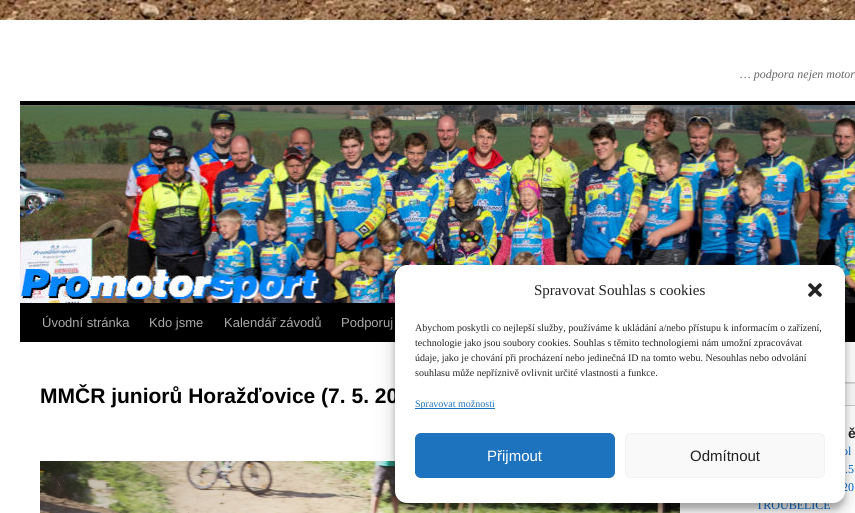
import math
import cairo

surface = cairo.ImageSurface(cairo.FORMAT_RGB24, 855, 513)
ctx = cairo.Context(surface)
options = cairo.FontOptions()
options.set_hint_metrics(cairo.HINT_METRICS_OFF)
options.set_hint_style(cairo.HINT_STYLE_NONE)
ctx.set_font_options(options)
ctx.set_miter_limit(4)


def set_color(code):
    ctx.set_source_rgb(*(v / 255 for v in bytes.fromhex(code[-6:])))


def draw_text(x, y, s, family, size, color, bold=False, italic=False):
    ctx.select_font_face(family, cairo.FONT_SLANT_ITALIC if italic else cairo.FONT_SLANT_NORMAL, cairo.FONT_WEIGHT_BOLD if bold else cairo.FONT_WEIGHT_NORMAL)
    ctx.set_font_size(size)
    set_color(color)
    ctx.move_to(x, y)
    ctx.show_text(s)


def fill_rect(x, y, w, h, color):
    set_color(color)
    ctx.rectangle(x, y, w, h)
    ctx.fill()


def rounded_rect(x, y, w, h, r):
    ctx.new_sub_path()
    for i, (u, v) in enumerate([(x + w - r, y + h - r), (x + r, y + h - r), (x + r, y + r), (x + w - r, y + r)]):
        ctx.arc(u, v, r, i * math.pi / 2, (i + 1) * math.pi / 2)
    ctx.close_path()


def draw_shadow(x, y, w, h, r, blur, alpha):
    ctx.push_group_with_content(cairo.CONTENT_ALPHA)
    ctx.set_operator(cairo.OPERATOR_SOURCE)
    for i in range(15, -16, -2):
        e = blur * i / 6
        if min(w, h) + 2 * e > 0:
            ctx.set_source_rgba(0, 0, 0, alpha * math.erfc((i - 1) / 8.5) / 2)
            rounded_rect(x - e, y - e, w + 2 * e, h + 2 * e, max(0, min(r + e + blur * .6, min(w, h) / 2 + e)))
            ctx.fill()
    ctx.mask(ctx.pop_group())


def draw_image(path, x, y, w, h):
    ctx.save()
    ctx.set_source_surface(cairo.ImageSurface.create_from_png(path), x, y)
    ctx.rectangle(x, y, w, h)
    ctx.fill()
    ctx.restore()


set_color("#ffffff")
ctx.paint()
draw_image("assets/img1.png", 0, 0, 855, 20)
draw_text(740, 78, "… podpora nejen motor", "Liberation Serif", 12, "#666666", italic=True)
fill_rect(20, 101, 835, 4, "#000000")
fill_rect(20, 303, 835, 39, "#000000")
draw_image("assets/img2.png", 20, 105, 835, 198)
draw_text(42, 327, "Úvodní stránka", "Liberation Sans", 13, "#aaaaaa")
draw_text(149, 327, "Kdo jsme", "Liberation Sans", 13, "#aaaaaa")
draw_text(224, 327, "Kalendář závodů", "Liberation Sans", 13, "#aaaaaa")
draw_text(341, 327, "Podporuj", "Liberation Sans", 13, "#aaaaaa")
draw_text(40, 403, "MMČR juniorů Horažďovice (7. 5. 20", "Liberation Sans", 21, "#000000", bold=True)
draw_image("assets/img3.png", 40, 461, 640, 52)
fill_rect(845, 384, 10, 21, "#f9f9f9")
ctx.save()
ctx.rectangle(741, 383, 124, 22)
ctx.clip()
set_color("#e0e0e0")
ctx.set_fill_rule(cairo.FILL_RULE_EVEN_ODD)
ctx.new_path()
ctx.move_to(642, 284)
ctx.line_to(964, 284)
ctx.line_to(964, 504)
ctx.line_to(642, 504)
ctx.close_path()
ctx.move_to(742, 384)
ctx.line_to(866, 384)
ctx.line_to(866, 406)
ctx.line_to(742, 406)
ctx.close_path()
ctx.fill()
ctx.restore()
ctx.rectangle(740.5, 382.5, 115, 23)
set_color("#cccccc")
ctx.set_line_width(1)
ctx.stroke()
draw_text(848, 438, "ě", "Liberation Sans", 14, "#222222", bold=True)
draw_text(842, 455, "ol", "Liberation Serif", 12, "#0066cc")
draw_text(845, 473, ".5", "Liberation Serif", 12, "#0066cc")
draw_text(842, 491, "20", "Liberation Serif", 12, "#0066cc")
draw_text(756, 509, "TROUBELICE", "Liberation Serif", 12, "#0066cc")
set_color("#000000")
draw_shadow(395, 271, 450, 238, 12, 3, 0.23)
draw_shadow(395, 275, 450, 238, 12, 10, 0.19)
set_color("#ffffff")
rounded_rect(395, 265, 450, 238, 12)
ctx.fill()
draw_text(534, 295, "Spravovat Souhlas s cookies", "Liberation Serif", 15, "#222222")
draw_image("assets/img4.png", 808, 283, 14, 14)
draw_text(415, 331, "Abychom poskytli co nejlepší služby, používáme k ukládání a/nebo přístupu k informacím o zařízení,", "Liberation Serif", 10, "#222222")
draw_text(415, 346, "technologie jako jsou soubory cookies. Souhlas s těmito technologiemi nám umožní zpracovávat", "Liberation Serif", 10, "#222222")
draw_text(415, 361, "údaje, jako je chování při procházení nebo jedinečná ID na tomto webu. Nesouhlas nebo odvolání", "Liberation Serif", 10, "#222222")
draw_text(415, 376, "souhlasu může nepříznivě ovlivnit určité vlastnosti a funkce.", "Liberation Serif", 10, "#222222")
fill_rect(415, 408, 80, 1, "#1e73be")
draw_text(415, 407, "Spravovat možnosti", "Liberation Serif", 10, "#1e73be")
rounded_rect(415.5, 433.5, 199, 44, 5.5)
ctx.fill_preserve()
ctx.stroke()
draw_text(487, 461, "Přijmout", "Liberation Sans", 15, "#ffffff")
set_color("#f9f9f9")
rounded_rect(625.5, 433.5, 199, 44, 5.5)
ctx.fill_preserve()
set_color("#f2f2f2")
ctx.stroke()
draw_text(690, 461, "Odmítnout", "Liberation Sans", 15, "#222222")
surface.write_to_png("output.png")
